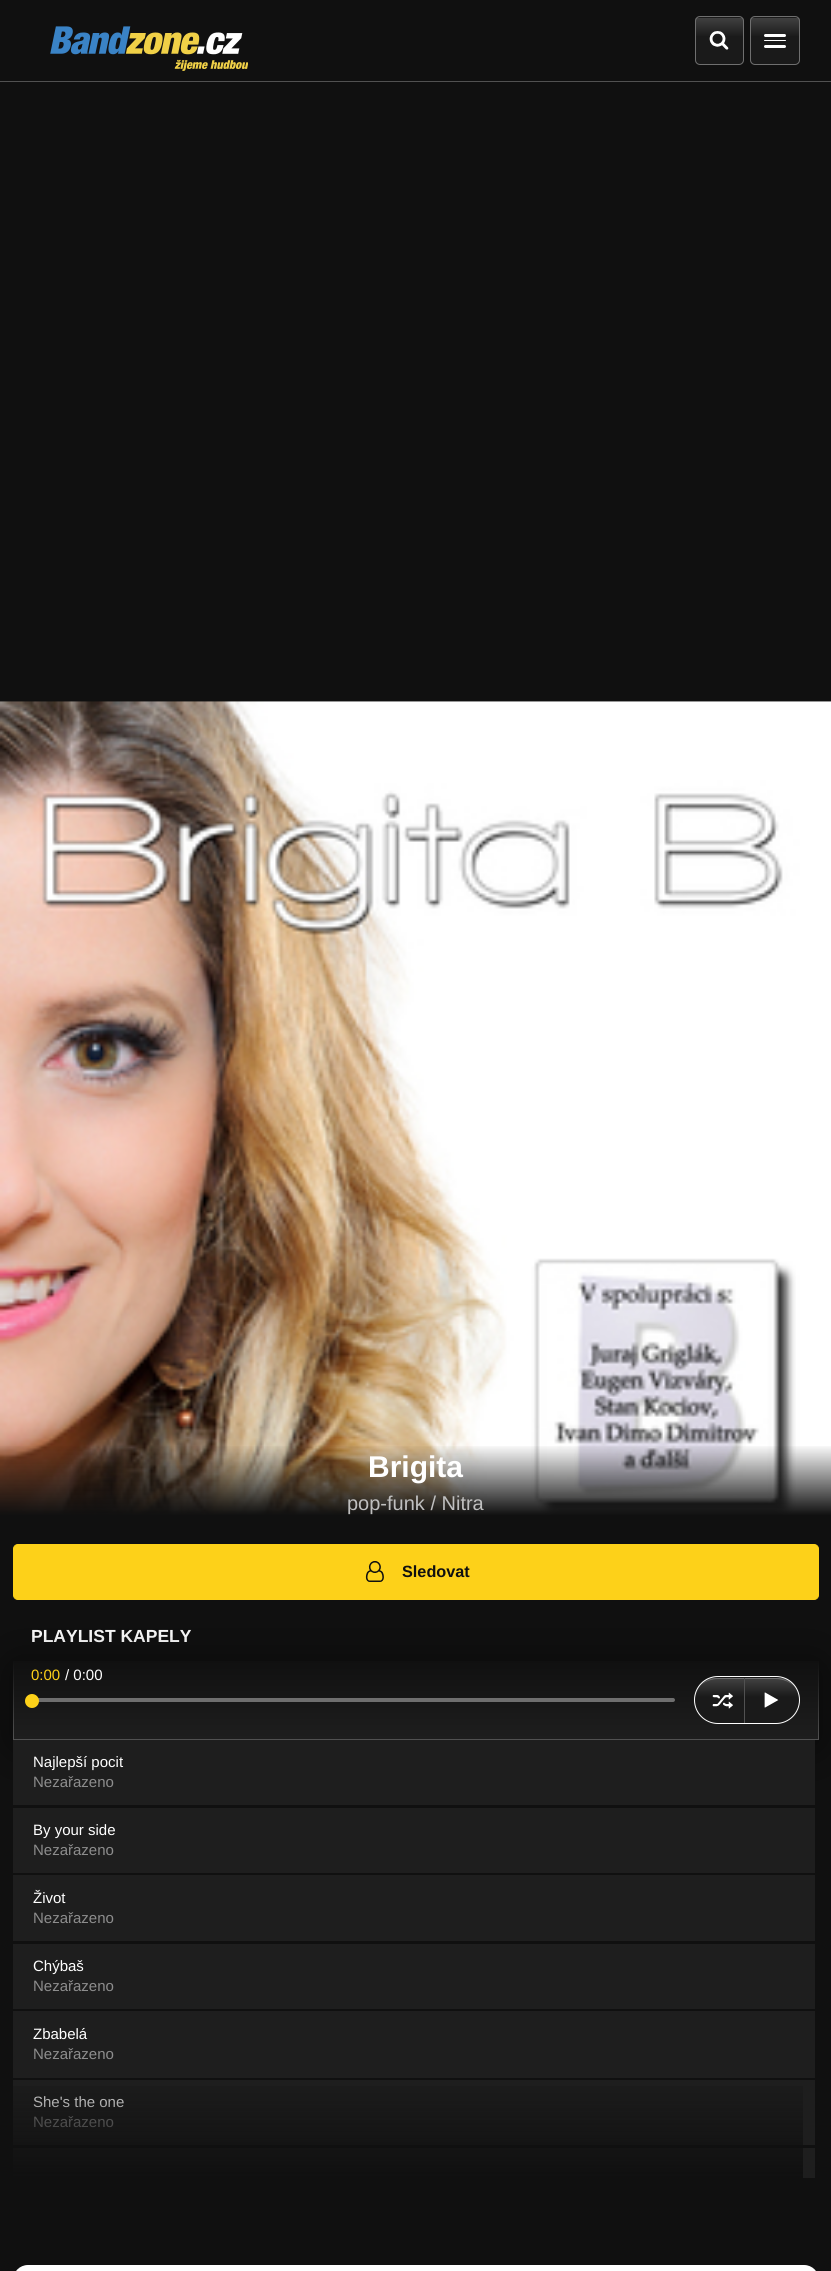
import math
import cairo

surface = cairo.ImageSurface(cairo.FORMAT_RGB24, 831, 2271)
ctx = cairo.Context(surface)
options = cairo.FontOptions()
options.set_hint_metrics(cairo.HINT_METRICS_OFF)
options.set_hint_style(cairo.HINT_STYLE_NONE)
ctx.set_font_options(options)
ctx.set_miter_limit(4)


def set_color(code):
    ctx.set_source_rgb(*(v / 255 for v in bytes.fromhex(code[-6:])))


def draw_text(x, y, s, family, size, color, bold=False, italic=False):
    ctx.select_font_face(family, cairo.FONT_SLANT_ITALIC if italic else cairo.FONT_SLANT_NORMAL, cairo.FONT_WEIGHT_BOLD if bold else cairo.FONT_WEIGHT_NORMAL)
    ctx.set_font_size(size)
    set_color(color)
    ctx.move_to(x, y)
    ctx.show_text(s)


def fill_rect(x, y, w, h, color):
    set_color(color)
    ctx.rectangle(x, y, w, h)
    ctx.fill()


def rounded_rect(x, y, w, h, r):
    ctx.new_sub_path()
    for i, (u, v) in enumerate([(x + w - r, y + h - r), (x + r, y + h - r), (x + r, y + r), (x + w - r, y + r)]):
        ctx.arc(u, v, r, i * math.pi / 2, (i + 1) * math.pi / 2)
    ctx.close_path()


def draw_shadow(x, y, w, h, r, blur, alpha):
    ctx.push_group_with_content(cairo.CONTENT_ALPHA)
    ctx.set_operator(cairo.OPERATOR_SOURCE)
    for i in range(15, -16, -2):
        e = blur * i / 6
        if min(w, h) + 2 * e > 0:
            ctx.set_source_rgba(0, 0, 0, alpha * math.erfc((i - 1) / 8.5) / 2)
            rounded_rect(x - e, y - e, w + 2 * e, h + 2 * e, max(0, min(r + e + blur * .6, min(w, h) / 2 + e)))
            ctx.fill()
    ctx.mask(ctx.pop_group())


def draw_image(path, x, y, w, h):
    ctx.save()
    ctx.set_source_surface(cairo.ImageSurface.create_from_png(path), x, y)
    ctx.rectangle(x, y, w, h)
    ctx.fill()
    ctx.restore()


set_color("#101010")
ctx.paint()
fill_rect(0, 81, 831, 1, "#515151")
draw_image("assets/img1.png", 50, 26, 198, 45)
ctx.save()
rounded_rect(695, 16, 49, 49, 5)
ctx.clip()
gradient = cairo.LinearGradient(719, -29, 719, 18)
gradient.add_color_stop_rgba(0, 0.259, 0.259, 0.259, 1)
gradient.add_color_stop_rgba(0.42, 0.102, 0.102, 0.102, 1)
ctx.set_source(gradient)
ctx.rectangle(695, 16, 49, 2)
ctx.fill()
gradient = cairo.LinearGradient(719, 17, 719, 64)
gradient.add_color_stop_rgba(0, 0.259, 0.259, 0.259, 1)
gradient.add_color_stop_rgba(0.42, 0.102, 0.102, 0.102, 1)
ctx.set_source(gradient)
ctx.rectangle(695, 18, 49, 46)
ctx.fill()
ctx.restore()
rounded_rect(695.5, 16.5, 48, 48, 4.5)
set_color("#6f6f6f")
ctx.set_line_width(1)
ctx.stroke()
draw_image("assets/img2.png", 709, 31, 20, 19)
ctx.save()
rounded_rect(750, 16, 50, 49, 5)
ctx.clip()
gradient = cairo.LinearGradient(775, -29, 775, 18)
gradient.add_color_stop_rgba(0, 0.259, 0.259, 0.259, 1)
gradient.add_color_stop_rgba(0.42, 0.102, 0.102, 0.102, 1)
ctx.set_source(gradient)
ctx.rectangle(750, 16, 50, 2)
ctx.fill()
gradient = cairo.LinearGradient(775, 17, 775, 64)
gradient.add_color_stop_rgba(0, 0.259, 0.259, 0.259, 1)
gradient.add_color_stop_rgba(0.42, 0.102, 0.102, 0.102, 1)
ctx.set_source(gradient)
ctx.rectangle(750, 18, 50, 46)
ctx.fill()
ctx.restore()
rounded_rect(750.5, 16.5, 49, 48, 4.5)
ctx.stroke()
set_color("#ffffff")
rounded_rect(764, 34, 22, 3, 1.5)
ctx.fill()
rounded_rect(764, 40, 22, 1, 0.5)
ctx.fill()
rounded_rect(764, 45, 22, 3, 1.5)
ctx.fill()
draw_image("assets/img3.png", 0, 701, 831, 814)
gradient = cairo.LinearGradient(416, 1444, 416, 1519)
gradient.add_color_stop_rgba(0, 0.063, 0.063, 0.063, 0)
gradient.add_color_stop_rgba(0.95, 0.063, 0.063, 0.063, 1)
ctx.set_source(gradient)
ctx.rectangle(0, 1446, 831, 69)
ctx.fill()
draw_text(368, 1477, "Brigita", "Liberation Sans", 30, "#ffffff", bold=True)
draw_text(347, 1510, "pop-funk / Nitra", "Liberation Sans", 20, "#bfbfbf")
set_color("#fdd119")
rounded_rect(13.5, 1544.5, 805, 55, 4.5)
ctx.fill_preserve()
ctx.stroke()
draw_image("assets/img4.png", 365, 1561, 19, 21)
draw_text(402, 1577, "Sledovat", "Liberation Sans", 16.25, "#101010", bold=True)
draw_text(31, 1642, "PLAYLIST KAPELY", "Liberation Sans", 17.5, "#ffffff", bold=True)
set_color("#000000")
draw_shadow(13, 1666, 806, 79, 0, 25, 0.5)
gradient = cairo.LinearGradient(416, 1661, 416, 1739)
gradient.add_color_stop_rgba(0, 0.063, 0.063, 0.063, 1)
gradient.add_color_stop_rgba(1, 0.118, 0.118, 0.118, 1)
ctx.set_source(gradient)
ctx.rectangle(14, 1661, 804, 78)
ctx.fill()
fill_rect(13, 1739, 806, 1, "#515151")
gradient = cairo.LinearGradient(13, 1661, 13, 1739)
gradient.add_color_stop_rgba(0, 0.063, 0.063, 0.063, 1)
gradient.add_color_stop_rgba(1, 0.318, 0.318, 0.318, 1)
ctx.set_source(gradient)
ctx.rectangle(13, 1661, 1, 78)
ctx.fill()
set_color("#6f6f6f")
rounded_rect(31, 1698, 644, 4, 2)
ctx.fill()
draw_text(31, 1680, "0:00", "Liberation Sans", 15, "#fdd119")
draw_text(65, 1680, "/ 0:00", "Liberation Sans", 15, "#ffffff")
set_color("#fdd119")
ctx.new_path()
ctx.arc(32, 1701, 7, 0, 2 * math.pi)
ctx.fill()
ctx.save()
rounded_rect(694, 1676, 106, 48, 24)
ctx.clip()
gradient = cairo.LinearGradient(747, 1633, 747, 1678)
gradient.add_color_stop_rgba(0, 0.259, 0.259, 0.259, 1)
gradient.add_color_stop_rgba(0.42, 0.102, 0.102, 0.102, 1)
ctx.set_source(gradient)
ctx.rectangle(708, 1676, 78, 2)
ctx.fill()
gradient = cairo.LinearGradient(747, 1678, 747, 1723)
gradient.add_color_stop_rgba(0, 0.259, 0.259, 0.259, 1)
gradient.add_color_stop_rgba(0.42, 0.102, 0.102, 0.102, 1)
ctx.set_source(gradient)
ctx.rectangle(694, 1678, 106, 45)
ctx.fill()
ctx.restore()
ctx.set_source_rgba(1, 1, 1, 0.25)
ctx.new_path()
ctx.move_to(718, 1679)
ctx.line_to(776, 1679)
ctx.curve_to(783, 1679, 790, 1682, 795, 1687)
ctx.curve_to(791, 1682, 784, 1678, 776, 1678)
ctx.line_to(718, 1678)
ctx.curve_to(711, 1678, 705, 1681, 701, 1685)
ctx.curve_to(706, 1681, 712, 1679, 718, 1679)
ctx.close_path()
ctx.fill()
rounded_rect(694.5, 1676.5, 105, 47, 23.5)
set_color("#ffffff")
ctx.stroke()
fill_rect(744, 1678, 1, 45, "#515151")
draw_image("assets/img5.png", 712, 1692, 21, 17)
draw_image("assets/img6.png", 764, 1692, 15, 16)
gradient = cairo.LinearGradient(818, 1661, 818, 1739)
gradient.add_color_stop_rgba(0, 0.063, 0.063, 0.063, 1)
gradient.add_color_stop_rgba(1, 0.318, 0.318, 0.318, 1)
ctx.set_source(gradient)
ctx.rectangle(818, 1661, 1, 78)
ctx.fill()
fill_rect(13, 1740, 802, 65, "#1e1e1e")
draw_text(33, 1767, "Najlepší pocit", "Liberation Sans", 15, "#ffffff")
draw_text(33, 1787, "Nezařazeno", "Liberation Sans", 15, "#8d8d8d")
fill_rect(13, 1808, 802, 65, "#1e1e1e")
draw_text(33, 1835, "By your side", "Liberation Sans", 15, "#ffffff")
draw_text(33, 1855, "Nezařazeno", "Liberation Sans", 15, "#8d8d8d")
fill_rect(13, 1875, 802, 66, "#1e1e1e")
draw_text(33, 1903, "Život", "Liberation Sans", 15, "#ffffff")
draw_text(33, 1923, "Nezařazeno", "Liberation Sans", 15, "#8d8d8d")
fill_rect(13, 1944, 802, 65, "#1e1e1e")
draw_text(33, 1971, "Chýbaš", "Liberation Sans", 15, "#ffffff")
draw_text(33, 1991, "Nezařazeno", "Liberation Sans", 15, "#8d8d8d")
fill_rect(13, 2011, 802, 67, "#1e1e1e")
draw_text(33, 2039, "Zbabelá", "Liberation Sans", 15, "#ffffff")
draw_text(33, 2059, "Nezařazeno", "Liberation Sans", 15, "#8d8d8d")
fill_rect(13, 2080, 802, 65, "#1e1e1e")
draw_text(33, 2107, "She's the one", "Liberation Sans", 15, "#ffffff")
draw_text(33, 2127, "Nezařazeno", "Liberation Sans", 15, "#8d8d8d")
fill_rect(13, 2148, 802, 30, "#1e1e1e")
gradient = cairo.LinearGradient(408, 2065, 408, 2178)
gradient.add_color_stop_rgba(0, 0.063, 0.063, 0.063, 0)
gradient.add_color_stop_rgba(1, 0.063, 0.063, 0.063, 1)
ctx.set_source(gradient)
ctx.rectangle(13, 2086, 790, 92)
ctx.fill()
set_color("#ffffff")
rounded_rect(13, 2265, 806, 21, 15)
ctx.fill()
surface.write_to_png("output.png")
